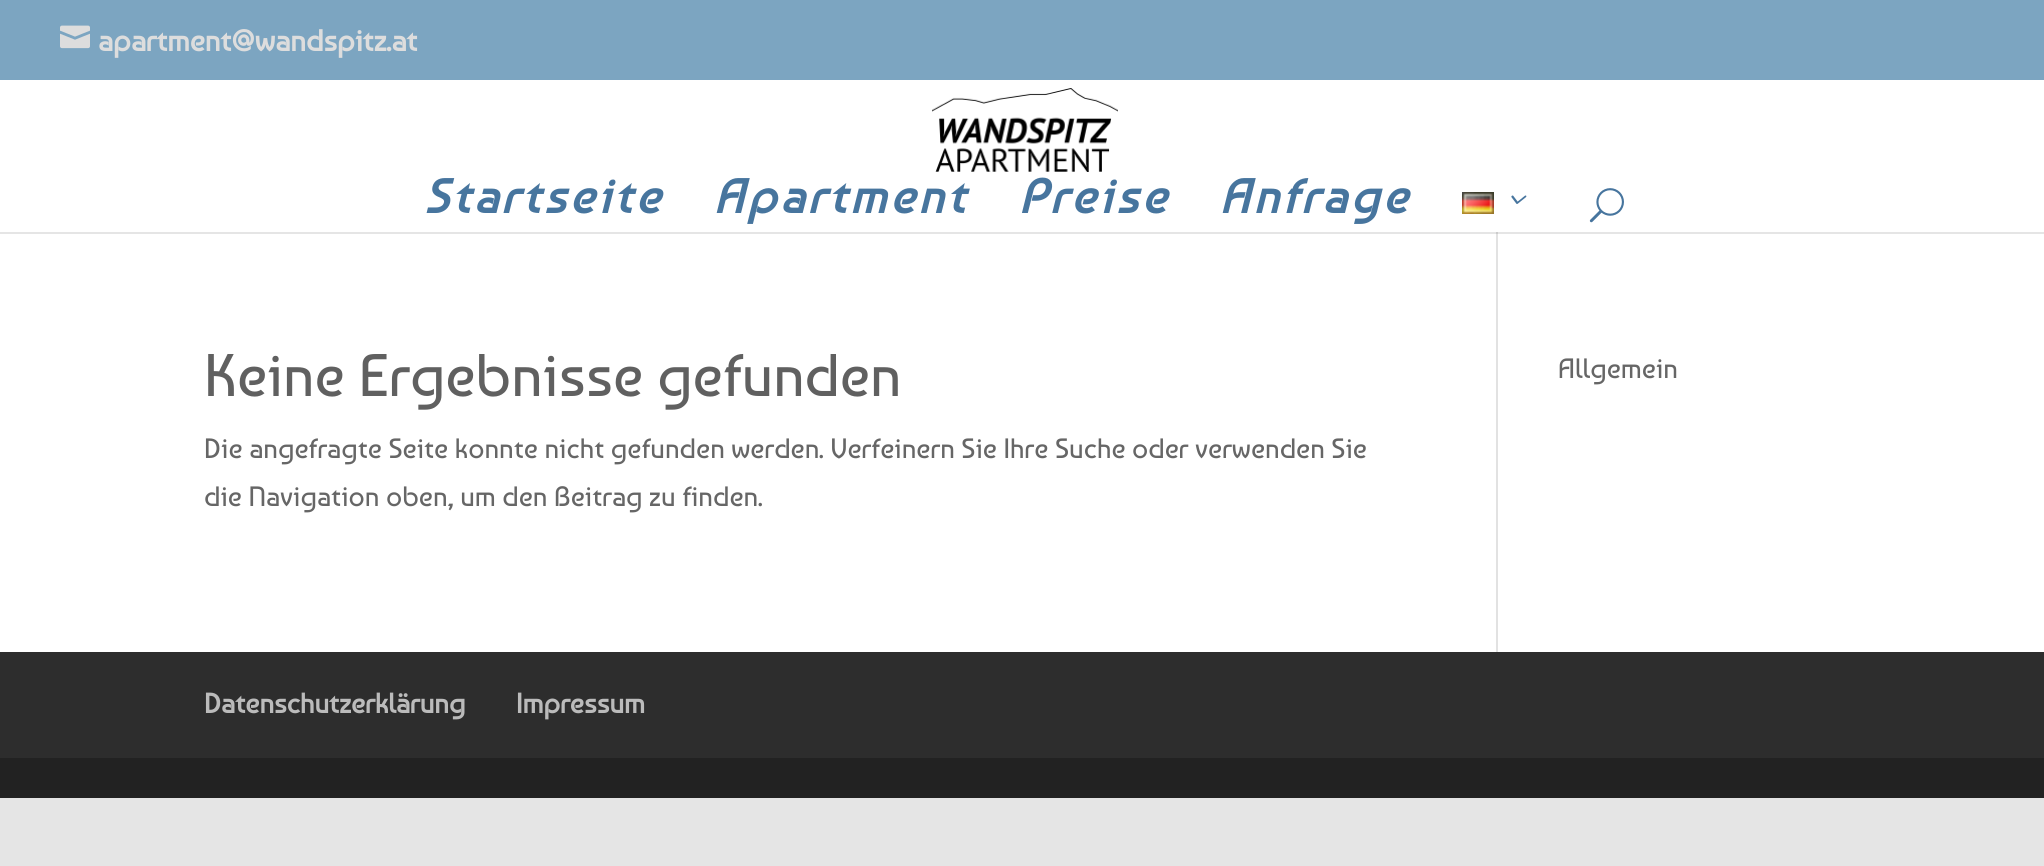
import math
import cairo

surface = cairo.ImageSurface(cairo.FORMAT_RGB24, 2044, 866)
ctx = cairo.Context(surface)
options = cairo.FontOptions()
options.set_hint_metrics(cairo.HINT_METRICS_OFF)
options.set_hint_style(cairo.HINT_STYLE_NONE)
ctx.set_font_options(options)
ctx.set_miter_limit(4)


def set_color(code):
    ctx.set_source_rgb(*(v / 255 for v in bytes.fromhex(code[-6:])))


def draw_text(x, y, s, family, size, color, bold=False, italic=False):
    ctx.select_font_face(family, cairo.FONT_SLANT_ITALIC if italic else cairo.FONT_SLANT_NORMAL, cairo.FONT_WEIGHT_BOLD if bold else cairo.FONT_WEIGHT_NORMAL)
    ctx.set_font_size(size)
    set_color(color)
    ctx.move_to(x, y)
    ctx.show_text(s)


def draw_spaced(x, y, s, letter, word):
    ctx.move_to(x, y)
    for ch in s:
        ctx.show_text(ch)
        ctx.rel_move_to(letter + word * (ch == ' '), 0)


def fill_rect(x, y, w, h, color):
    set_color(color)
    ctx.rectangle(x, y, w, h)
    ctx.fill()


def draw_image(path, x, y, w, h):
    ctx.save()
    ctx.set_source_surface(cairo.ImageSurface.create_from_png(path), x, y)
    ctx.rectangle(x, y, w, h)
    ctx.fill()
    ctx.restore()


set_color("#e5e5e5")
ctx.paint()
fill_rect(0, 0, 2044, 80, "#7ca5c1")
draw_image("assets/img1.png", 60, 25, 30, 24)
draw_text(98, 51, "apartment@wandspitz.at", "Baumans", 30, "#dddddd", bold=True)
fill_rect(0, 234, 2044, 418, "#ffffff")
fill_rect(1496, 230, 2, 422, "#e2e2e2")
fill_rect(0, 80, 2044, 152, "#ffffff")
draw_image("assets/img2.png", 932, 88, 186, 84)
ctx.select_font_face("Baumans", cairo.FONT_SLANT_ITALIC, cairo.FONT_WEIGHT_BOLD)
ctx.set_font_size(48)
set_color("#47759e")
draw_spaced(424, 213, "Startseite", 4, 0)
draw_spaced(714, 213, "Apartment", 4, 0)
draw_spaced(1019, 213, "Preise", 4, 0)
draw_spaced(1220, 213, "Anfrage", 4, 0)
draw_image("assets/img3.png", 1462, 192, 32, 22)
draw_image("assets/img4.png", 1511, 195, 16, 9)
draw_image("assets/img5.png", 1589, 188, 35, 35)
fill_rect(1496, 232, 2, 2, "#cbcbcb")
draw_text(204, 396, "Keine Ergebnisse gefunden", "Baumans", 60, "#606060")
draw_text(204, 458, "Die angefragte Seite konnte nicht gefunden werden. Verfeinern Sie Ihre Suche oder verwenden Sie", "Baumans", 28, "#666666")
draw_text(204, 506, "die Navigation oben, um den Beitrag zu finden.", "Baumans", 28, "#666666")
draw_text(1558, 378, "Allgemein", "Baumans", 28, "#666666")
fill_rect(0, 758, 2044, 40, "#222222")
fill_rect(0, 652, 2044, 106, "#2d2d2d")
draw_text(204, 713, "Datenschutzerklärung", "Baumans", 28, "#bbbbbb", bold=True)
draw_text(516, 713, "Impressum", "Baumans", 28, "#bbbbbb", bold=True)
surface.write_to_png("output.png")
